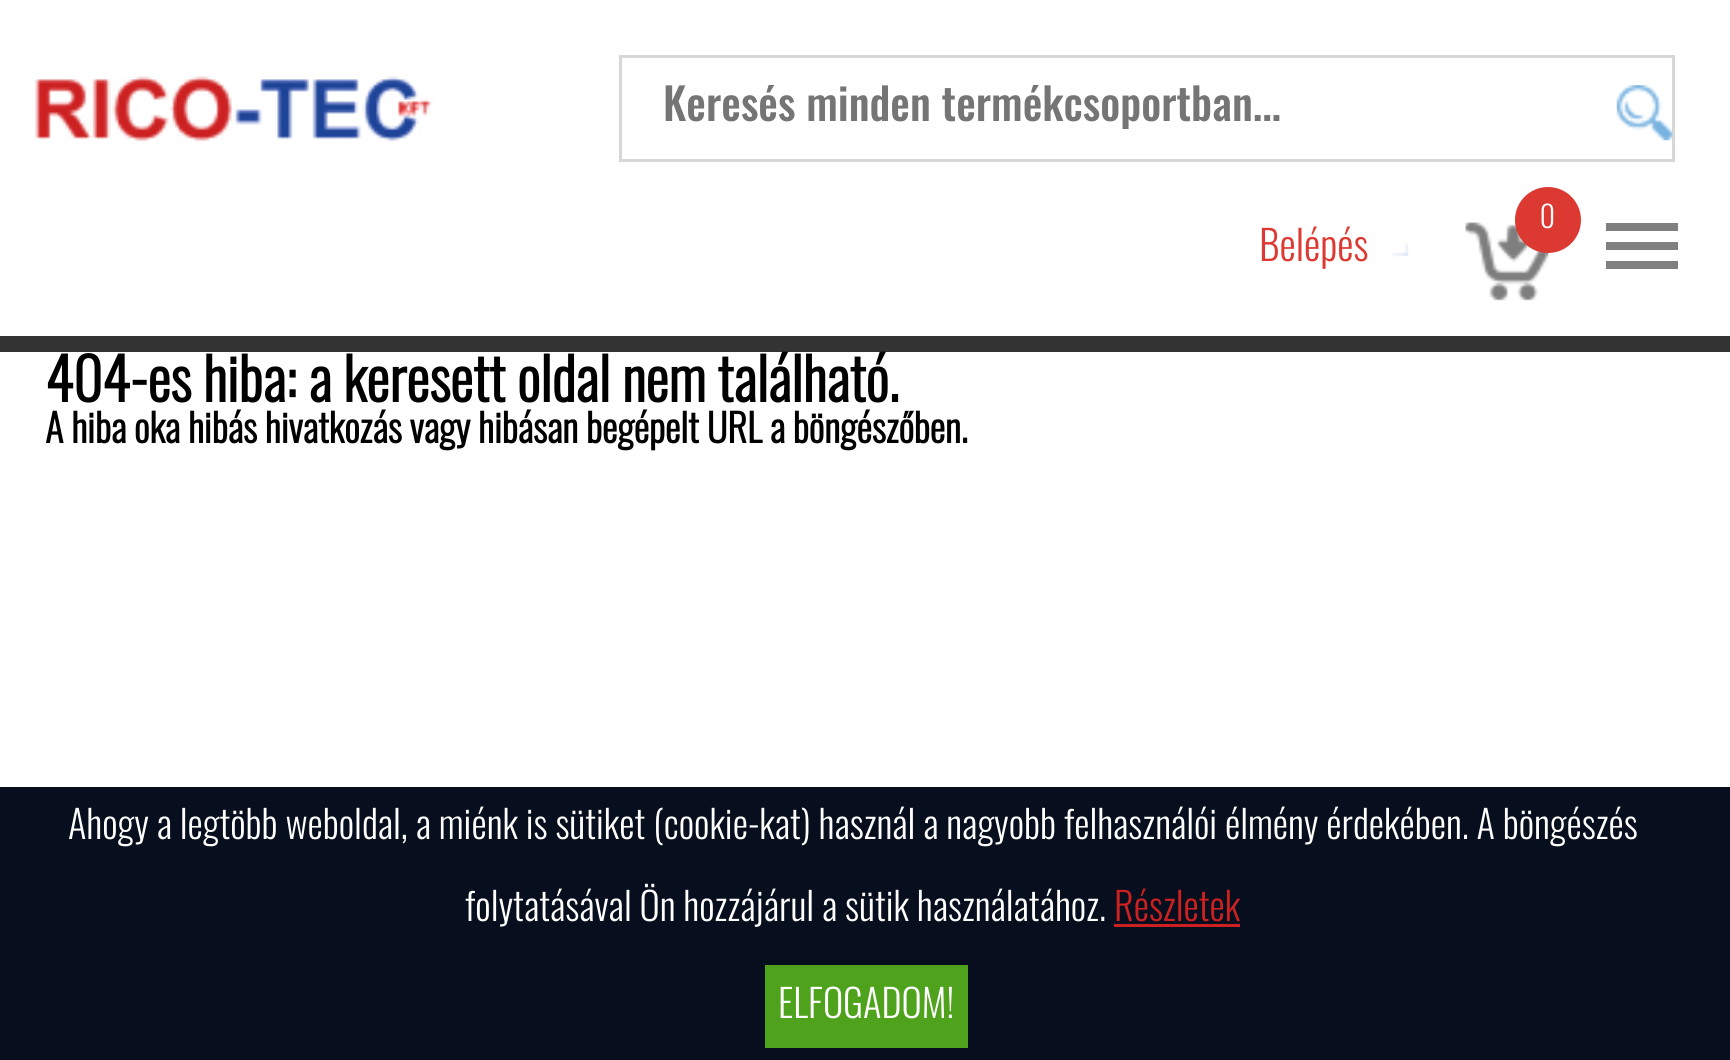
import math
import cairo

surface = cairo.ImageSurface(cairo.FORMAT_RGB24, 1730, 1060)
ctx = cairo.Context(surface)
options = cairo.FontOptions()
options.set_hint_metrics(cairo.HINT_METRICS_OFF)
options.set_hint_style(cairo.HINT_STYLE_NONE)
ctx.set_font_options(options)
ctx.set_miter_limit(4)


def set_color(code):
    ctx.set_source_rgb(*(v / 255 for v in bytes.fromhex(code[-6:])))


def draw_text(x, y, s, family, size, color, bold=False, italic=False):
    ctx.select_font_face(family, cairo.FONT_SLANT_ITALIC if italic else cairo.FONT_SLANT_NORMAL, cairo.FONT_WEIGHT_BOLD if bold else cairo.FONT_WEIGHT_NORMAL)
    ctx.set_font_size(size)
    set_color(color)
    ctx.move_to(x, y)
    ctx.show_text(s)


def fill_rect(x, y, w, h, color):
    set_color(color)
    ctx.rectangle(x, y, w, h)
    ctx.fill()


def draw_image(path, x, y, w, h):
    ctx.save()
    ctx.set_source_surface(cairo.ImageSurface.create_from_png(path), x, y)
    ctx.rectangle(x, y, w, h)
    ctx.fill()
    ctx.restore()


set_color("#ffffff")
ctx.paint()
fill_rect(0, 336, 1730, 16, "#333333")
draw_image("assets/img1.png", 35, 76, 398, 66)
ctx.rectangle(620.5, 56.5, 1053, 104)
set_color("#d7d7d7")
ctx.set_line_width(3)
ctx.stroke()
ctx.save()
ctx.rectangle(663, 85, 910, 44)
ctx.clip()
draw_text(663, 121, "Keresés minden termékcsoportban...", "Oswald Medium", 44, "#757575")
ctx.restore()
draw_image("assets/img2.png", 1616, 85, 57, 56)
draw_image("assets/img3.png", 1465, 222, 84, 79)
set_color("#dc3932")
ctx.arc(1548, 220, 33, 0, 2 * math.pi)
ctx.fill()
draw_text(1540, 228, "0", "Oswald Light", 30, "#ffffff")
draw_text(1259, 261, "Belépés", "Oswald Light", 41, "#dc3932")
draw_image("assets/img4.png", 1391, 242, 18, 15)
fill_rect(1606, 223, 72, 8, "#808080")
fill_rect(1606, 242, 72, 8, "#808080")
fill_rect(1606, 261, 72, 8, "#808080")
draw_text(45, 402, "404-es hiba: a keresett oldal nem található.", "Oswald", 57.75, "#000000", bold=True)
draw_text(45, 443, "A hiba oka hibás hivatkozás vagy hibásan begépelt URL a böngészőben.", "Oswald", 38.5, "#000000", bold=True)
fill_rect(0, 787, 1730, 273, "#070e1d")
draw_text(68, 839, "Ahogy a legtöbb weboldal, a miénk is sütiket (cookie-kat) használ a nagyobb felhasználói élmény érdekében. A böngészés", "Oswald Light", 38.5, "#ffffff")
draw_text(465, 921, "folytatásával Ön hozzájárul a sütik használatához.", "Oswald Light", 38.5, "#ffffff")
draw_text(1114, 921, "Részletek", "Oswald Light", 38.5, "#cd2121")
fill_rect(1114, 924, 126, 3, "#cd2121")
fill_rect(765, 965, 203, 83, "#4fa31c")
draw_text(778, 1018, "ELFOGADOM!", "Oswald Light", 38.5, "#ffffff")
surface.write_to_png("output.png")
